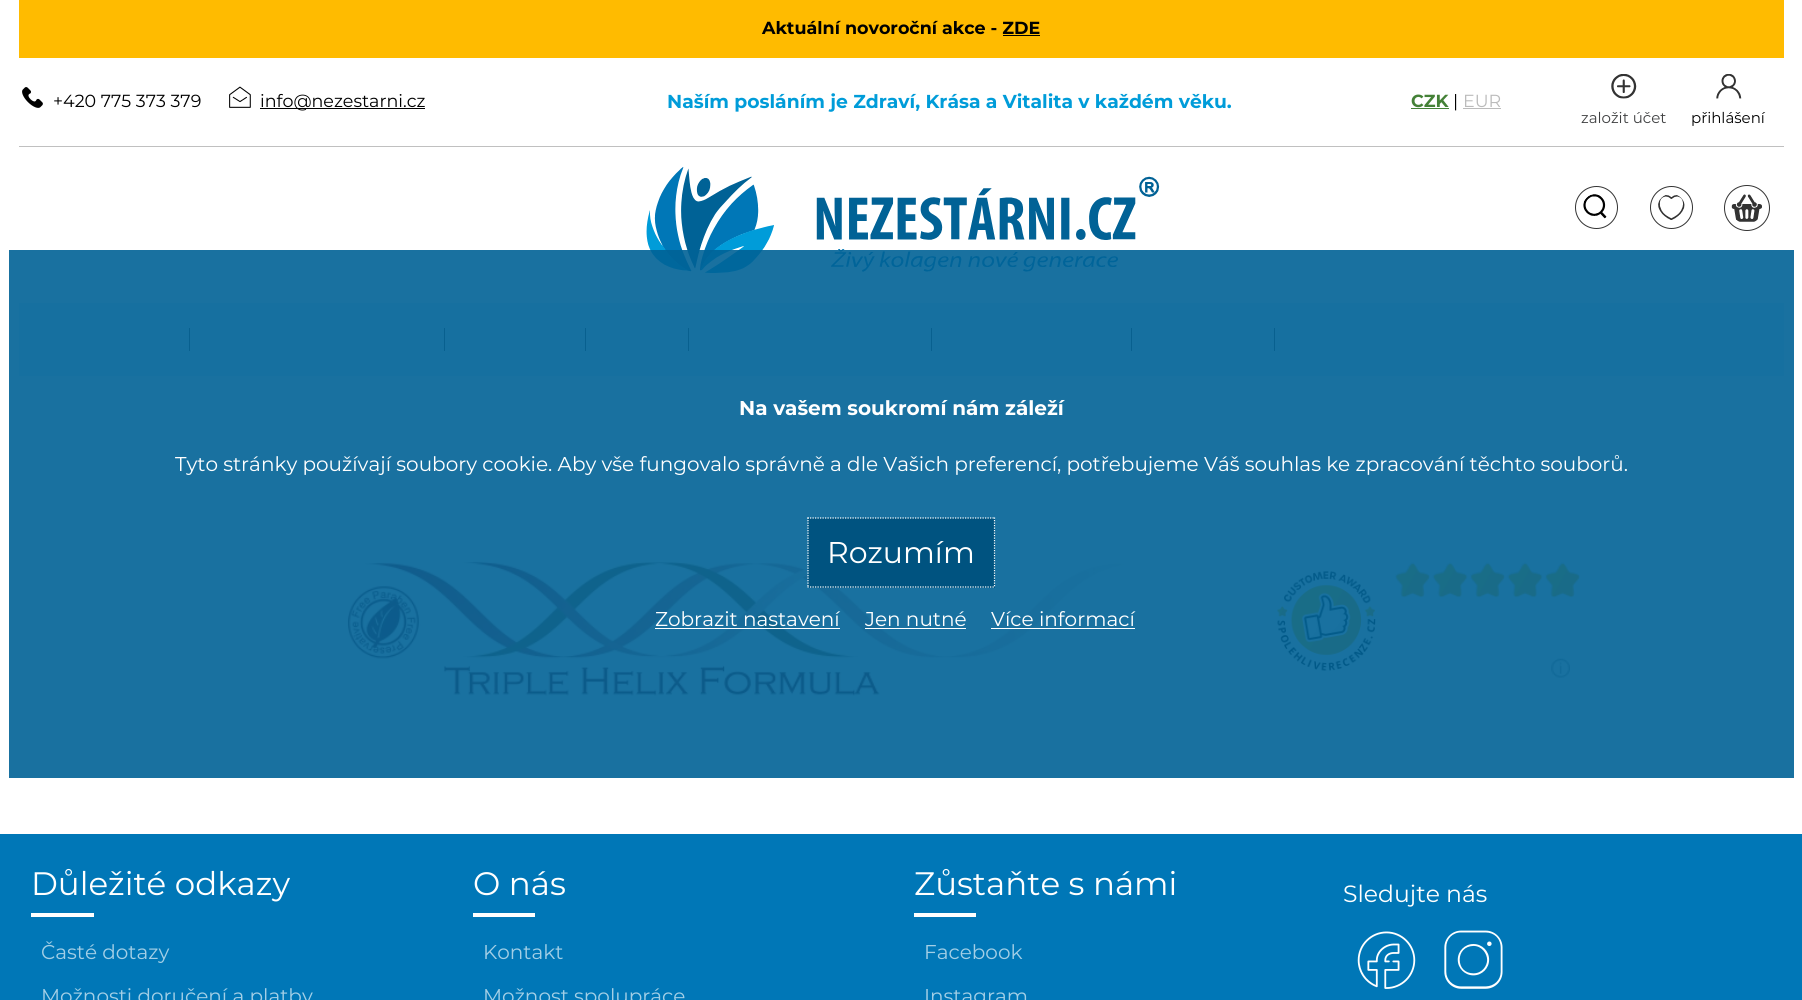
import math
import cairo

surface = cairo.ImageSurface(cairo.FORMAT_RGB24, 1802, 1000)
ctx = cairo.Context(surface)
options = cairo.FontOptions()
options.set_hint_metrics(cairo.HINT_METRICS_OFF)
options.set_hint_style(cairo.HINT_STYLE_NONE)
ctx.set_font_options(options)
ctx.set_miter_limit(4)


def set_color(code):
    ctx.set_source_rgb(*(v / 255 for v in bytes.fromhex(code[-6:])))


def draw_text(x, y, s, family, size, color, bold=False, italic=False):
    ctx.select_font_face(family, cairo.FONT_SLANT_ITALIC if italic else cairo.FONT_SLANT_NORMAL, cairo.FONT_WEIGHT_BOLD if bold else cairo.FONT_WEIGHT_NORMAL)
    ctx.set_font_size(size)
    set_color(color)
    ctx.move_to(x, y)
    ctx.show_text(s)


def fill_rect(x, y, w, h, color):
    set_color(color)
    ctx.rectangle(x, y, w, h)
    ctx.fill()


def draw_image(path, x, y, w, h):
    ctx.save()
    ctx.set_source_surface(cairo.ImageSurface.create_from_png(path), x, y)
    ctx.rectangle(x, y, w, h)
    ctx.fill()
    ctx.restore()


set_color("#ffffff")
ctx.paint()
fill_rect(19, 0, 1765, 58, "#ffbb00")
draw_text(762, 34, "Aktuální novoroční akce - ZDE", "Montserrat", 17.5, "#000000", bold=True)
fill_rect(1003, 35, 37, 1, "#000000")
fill_rect(19, 146, 1765, 1, "#c0c0c0")
draw_image("assets/img1.png", 22, 87, 21, 21)
draw_text(53, 107, "+420 775 373 379", "Montserrat", 17.5, "#000000")
draw_image("assets/img2.png", 229, 86, 22, 22)
fill_rect(260, 108, 165, 1, "#000000")
draw_text(260, 107, "info@nezestarni.cz", "Montserrat", 17.5, "#000000")
draw_text(667, 108, "Naším posláním je Zdraví, Krása a Vitalita v každém věku.", "Montserrat", 18.75, "#009cd9", bold=True)
draw_text(1411, 107, "CZK", "Montserrat", 17.5, "#448137", bold=True)
fill_rect(1411, 108, 38, 1, "#448137")
draw_text(1453, 107, "|", "Montserrat", 17.5, "#000000")
draw_text(1463, 107, "EUR", "Montserrat", 17.5, "#bbbbbb")
fill_rect(1463, 108, 38, 1, "#bbbbbb")
draw_image("assets/img3.png", 1611, 74, 26, 25)
draw_text(1581, 123, "založit účet", "Montserrat", 15, "#404142")
draw_image("assets/img4.png", 1716, 74, 26, 25)
draw_text(1691, 123, "přihlášení", "Montserrat", 15, "#000000")
draw_image("assets/img5.png", 646, 167, 514, 106)
ctx.arc(1596.5, 207.5, 21, 0, 2 * math.pi)
set_color("#333333")
ctx.set_line_width(1)
ctx.stroke()
draw_image("assets/img6.png", 1583, 194, 24, 25)
ctx.arc(1671.5, 207.5, 21, 0, 2 * math.pi)
ctx.stroke()
draw_image("assets/img7.png", 1658, 195, 27, 25)
ctx.arc(1747, 208, 22.5, 0, 2 * math.pi)
ctx.stroke()
draw_image("assets/img8.png", 1731, 194, 31, 28)
fill_rect(19, 303, 1765, 73, "#e5f4fb")
fill_rect(189, 328, 1, 23, "#4f4f4f")
fill_rect(444, 328, 1, 23, "#4f4f4f")
fill_rect(585, 328, 1, 23, "#4f4f4f")
fill_rect(688, 328, 1, 23, "#4f4f4f")
fill_rect(931, 328, 1, 23, "#4f4f4f")
fill_rect(1131, 328, 1, 23, "#4f4f4f")
fill_rect(1274, 328, 1, 23, "#4f4f4f")
draw_image("assets/img9.png", 347, 557, 781, 139)
draw_image("assets/img10.png", 1277, 571, 99, 100)
draw_image("assets/img11.png", 1395, 562, 185, 35)
draw_image("assets/img12.png", 1396, 563, 184, 35)
draw_image("assets/img13.png", 1551, 658, 19, 20)
ctx.set_source_rgba(0, 0.384, 0.588, 0.9)
ctx.rectangle(9, 250, 1785, 528)
ctx.fill()
draw_text(739, 415, "Na vašem soukromí nám záleží", "Montserrat", 20, "#ffffff", bold=True)
draw_text(175, 471, "Tyto stránky používají soubory cookie. Aby vše fungovalo správně a dle Vašich preferencí, potřebujeme Váš souhlas ke zpracování těchto souborů.", "Montserrat", 20, "#ffffff")
fill_rect(808, 518, 187, 70, "#005380")
ctx.new_path()
ctx.move_to(807.5, 518)
ctx.line_to(995, 518)
set_color("#ffffff")
ctx.set_line_width(1.2)
ctx.set_dash([1.25, 1.25])
ctx.stroke()
ctx.new_path()
ctx.move_to(994.5, 517.5)
ctx.line_to(994.5, 587.5)
ctx.stroke()
ctx.new_path()
ctx.move_to(807.5, 587)
ctx.line_to(995, 587)
ctx.stroke()
ctx.new_path()
ctx.move_to(808, 517.5)
ctx.line_to(808, 587.5)
ctx.stroke()
draw_text(827, 563, "Rozumím", "Montserrat", 30, "#ffffff")
draw_text(655, 626, "Zobrazit nastavení", "Montserrat", 20, "#ffffff")
fill_rect(655, 628, 185, 1, "#ffffff")
draw_text(865, 626, "Jen nutné", "Montserrat", 20, "#ffffff")
fill_rect(865, 628, 101, 1, "#ffffff")
draw_text(991, 626, "Více informací", "Montserrat", 20, "#ffffff")
fill_rect(991, 628, 144, 1, "#ffffff")
fill_rect(0, 834, 1802, 166, "#0077b7")
draw_text(31, 895, "Důležité odkazy", "Montserrat", 32.5, "#ffffff")
fill_rect(31, 913, 63, 4, "#ffffff")
draw_text(41, 959, "Časté dotazy", "Montserrat", 20, "#a3cfe6")
draw_text(41, 1003, "Možnosti doručení a platby", "Montserrat", 20, "#a3cfe6")
draw_text(473, 895, "O nás", "Montserrat", 32.5, "#ffffff")
fill_rect(473, 913, 62, 4, "#ffffff")
draw_text(483, 959, "Kontakt", "Montserrat", 20, "#a3cfe6")
draw_text(483, 1003, "Možnost spolupráce", "Montserrat", 20, "#a3cfe6")
draw_text(914, 895, "Zůstaňte s námi", "Montserrat", 32.5, "#ffffff")
fill_rect(914, 913, 62, 4, "#ffffff")
draw_text(924, 959, "Facebook", "Montserrat", 20, "#a3cfe6")
draw_text(924, 1003, "Instagram", "Montserrat", 20, "#a3cfe6")
draw_text(1343, 902, "Sledujte nás", "Montserrat", 23.5, "#ffffff")
draw_image("assets/img14.png", 1357, 931, 59, 58)
draw_image("assets/img15.png", 1444, 930, 59, 59)
surface.write_to_png("output.png")
